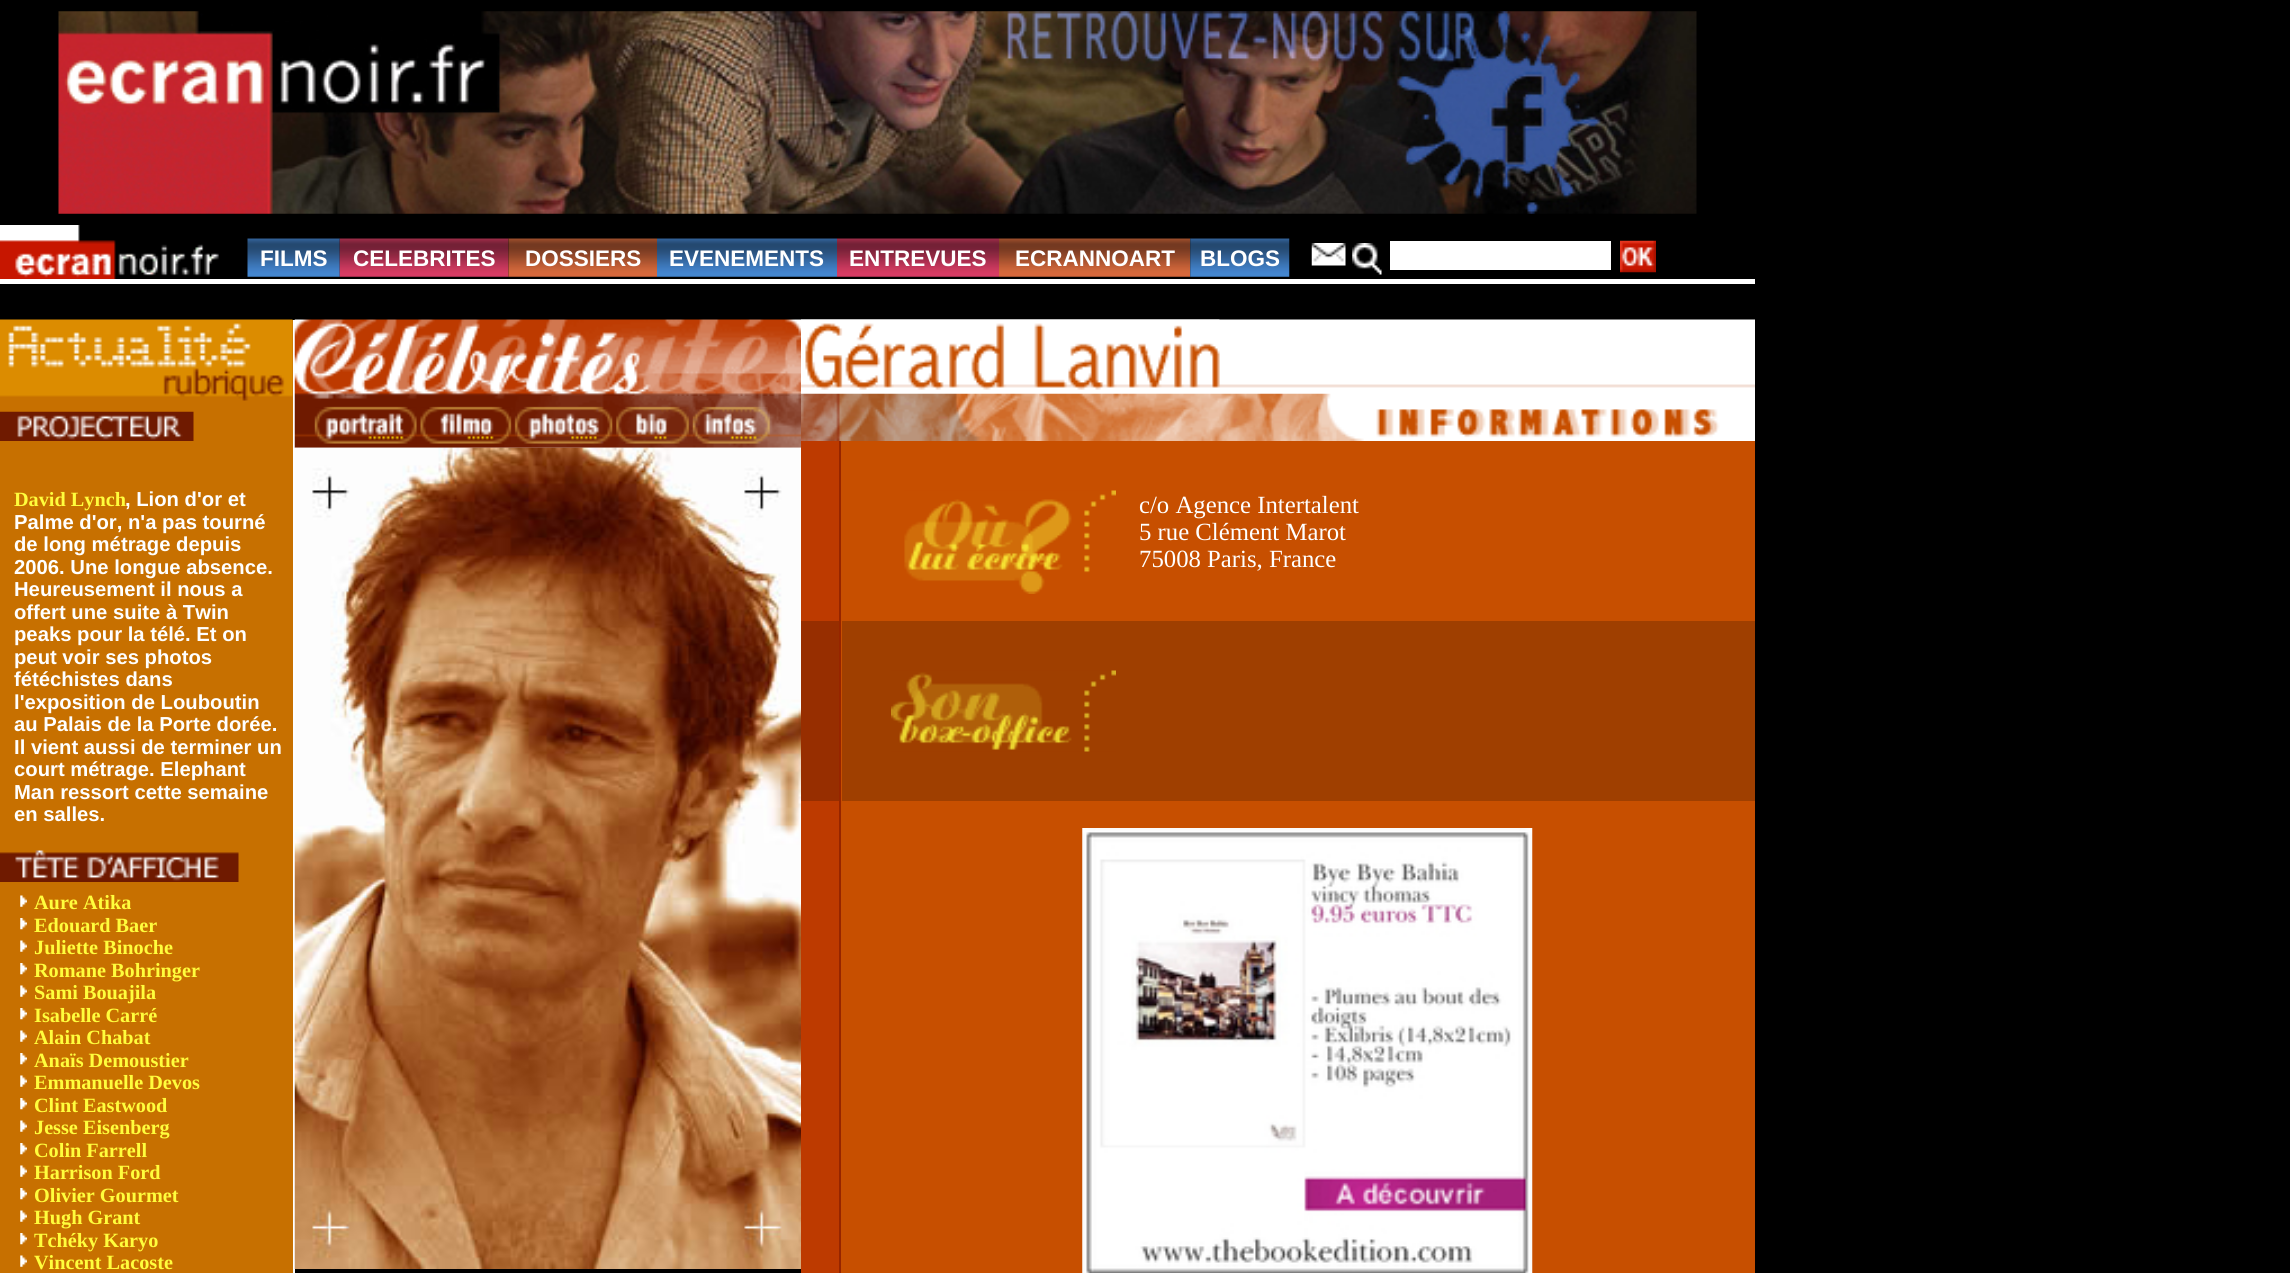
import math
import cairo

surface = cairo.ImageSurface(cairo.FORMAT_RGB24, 2290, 1273)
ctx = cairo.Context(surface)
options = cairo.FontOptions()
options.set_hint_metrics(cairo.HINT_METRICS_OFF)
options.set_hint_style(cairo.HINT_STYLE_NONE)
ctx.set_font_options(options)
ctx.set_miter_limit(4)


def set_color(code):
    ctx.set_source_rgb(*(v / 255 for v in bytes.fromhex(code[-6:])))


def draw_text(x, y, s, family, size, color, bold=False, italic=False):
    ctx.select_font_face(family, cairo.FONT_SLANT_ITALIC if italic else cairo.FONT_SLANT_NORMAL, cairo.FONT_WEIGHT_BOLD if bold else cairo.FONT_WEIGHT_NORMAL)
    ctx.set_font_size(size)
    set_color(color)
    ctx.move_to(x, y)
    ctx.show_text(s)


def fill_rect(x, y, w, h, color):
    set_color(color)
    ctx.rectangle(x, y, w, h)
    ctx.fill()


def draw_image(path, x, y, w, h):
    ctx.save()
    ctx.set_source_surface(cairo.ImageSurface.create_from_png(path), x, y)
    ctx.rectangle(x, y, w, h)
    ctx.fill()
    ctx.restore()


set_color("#000000")
ctx.paint()
draw_image("assets/img1.png", 58, 11, 1639, 203)
draw_image("assets/img2.png", 0, 225, 219, 54)
draw_image("assets/img3.png", 247, 238, 93, 39)
draw_text(260, 266, "FILMS", "Liberation Sans", 22.5, "#ffffff", bold=True)
draw_image("assets/img4.png", 339, 238, 170, 39)
draw_text(353, 266, "CELEBRITES", "Liberation Sans", 22.5, "#ffffff", bold=True)
draw_image("assets/img5.png", 508, 238, 149, 39)
draw_text(525, 266, "DOSSIERS", "Liberation Sans", 22.5, "#ffffff", bold=True)
draw_image("assets/img6.png", 657, 238, 180, 39)
draw_text(669, 266, "EVENEMENTS", "Liberation Sans", 22.5, "#ffffff", bold=True)
draw_image("assets/img7.png", 837, 238, 162, 39)
draw_text(849, 266, "ENTREVUES", "Liberation Sans", 22.5, "#ffffff", bold=True)
draw_image("assets/img8.png", 999, 238, 192, 39)
draw_text(1015, 266, "ECRANNOART", "Liberation Sans", 22.5, "#ffffff", bold=True)
draw_image("assets/img9.png", 1190, 238, 100, 39)
draw_text(1200, 266, "BLOGS", "Liberation Sans", 22.5, "#ffffff", bold=True)
draw_image("assets/img10.png", 1311, 243, 35, 23)
draw_image("assets/img11.png", 1352, 243, 30, 32)
fill_rect(1390, 241, 221, 29, "#ffffff")
draw_image("assets/img12.png", 1620, 240, 36, 33)
fill_rect(0, 279, 1755, 5, "#ffffff")
fill_rect(293, 320, 508, 953, "#ffffff")
fill_rect(0, 320, 293, 953, "#c77000")
draw_image("assets/img13.png", 0, 319, 293, 82)
draw_image("assets/img14.png", 0, 411, 194, 30)
draw_text(14, 506, "David Lynch", "Liberation Serif", 20.25, "#fffd3c", bold=True)
draw_text(125, 506, ", Lion d'or et", "Liberation Sans", 20.25, "#ffffff", bold=True)
draw_text(14, 529, "Palme d'or, n'a pas tourné", "Liberation Sans", 20.25, "#ffffff", bold=True)
draw_text(14, 551, "de long métrage depuis", "Liberation Sans", 20.25, "#ffffff", bold=True)
draw_text(14, 574, "2006. Une longue absence.", "Liberation Sans", 20.25, "#ffffff", bold=True)
draw_text(14, 596, "Heureusement il nous a", "Liberation Sans", 20.25, "#ffffff", bold=True)
draw_text(14, 619, "offert une suite à Twin", "Liberation Sans", 20.25, "#ffffff", bold=True)
draw_text(14, 641, "peaks pour la télé. Et on", "Liberation Sans", 20.25, "#ffffff", bold=True)
draw_text(14, 664, "peut voir ses photos", "Liberation Sans", 20.25, "#ffffff", bold=True)
draw_text(14, 686, "fétéchistes dans", "Liberation Sans", 20.25, "#ffffff", bold=True)
draw_text(14, 709, "l'exposition de Louboutin", "Liberation Sans", 20.25, "#ffffff", bold=True)
draw_text(14, 731, "au Palais de la Porte dorée.", "Liberation Sans", 20.25, "#ffffff", bold=True)
draw_text(14, 754, "Il vient aussi de terminer un", "Liberation Sans", 20.25, "#ffffff", bold=True)
draw_text(14, 776, "court métrage. Elephant", "Liberation Sans", 20.25, "#ffffff", bold=True)
draw_text(14, 799, "Man ressort cette semaine", "Liberation Sans", 20.25, "#ffffff", bold=True)
draw_text(14, 821, "en salles.", "Liberation Sans", 20.25, "#ffffff", bold=True)
draw_image("assets/img15.png", 0, 850, 239, 32)
draw_image("assets/img16.png", 20, 895, 7, 12)
draw_text(34, 909, "Aure Atika", "Liberation Serif", 20.25, "#fffd3c", bold=True)
draw_image("assets/img17.png", 20, 918, 7, 12)
draw_text(34, 932, "Edouard Baer", "Liberation Serif", 20.25, "#fffd3c", bold=True)
draw_image("assets/img16.png", 20, 940, 7, 12)
draw_text(34, 954, "Juliette Binoche", "Liberation Serif", 20.25, "#fffd3c", bold=True)
draw_image("assets/img17.png", 20, 963, 7, 12)
draw_text(34, 977, "Romane Bohringer", "Liberation Serif", 20.25, "#fffd3c", bold=True)
draw_image("assets/img16.png", 20, 985, 7, 12)
draw_text(34, 999, "Sami Bouajila", "Liberation Serif", 20.25, "#fffd3c", bold=True)
draw_image("assets/img17.png", 20, 1008, 7, 12)
draw_text(34, 1022, "Isabelle Carré", "Liberation Serif", 20.25, "#fffd3c", bold=True)
draw_image("assets/img16.png", 20, 1030, 7, 12)
draw_text(34, 1044, "Alain Chabat", "Liberation Serif", 20.25, "#fffd3c", bold=True)
draw_image("assets/img17.png", 20, 1053, 7, 12)
draw_text(34, 1067, "Anaïs Demoustier", "Liberation Serif", 20.25, "#fffd3c", bold=True)
draw_image("assets/img16.png", 20, 1075, 7, 12)
draw_text(34, 1089, "Emmanuelle Devos", "Liberation Serif", 20.25, "#fffd3c", bold=True)
draw_image("assets/img17.png", 20, 1098, 7, 12)
draw_text(34, 1112, "Clint Eastwood", "Liberation Serif", 20.25, "#fffd3c", bold=True)
draw_image("assets/img16.png", 20, 1120, 7, 12)
draw_text(34, 1134, "Jesse Eisenberg", "Liberation Serif", 20.25, "#fffd3c", bold=True)
draw_image("assets/img17.png", 20, 1143, 7, 12)
draw_text(34, 1157, "Colin Farrell", "Liberation Serif", 20.25, "#fffd3c", bold=True)
draw_image("assets/img16.png", 20, 1165, 7, 12)
draw_text(34, 1179, "Harrison Ford", "Liberation Serif", 20.25, "#fffd3c", bold=True)
draw_image("assets/img17.png", 20, 1188, 7, 12)
draw_text(34, 1202, "Olivier Gourmet", "Liberation Serif", 20.25, "#fffd3c", bold=True)
draw_image("assets/img16.png", 20, 1210, 7, 12)
draw_text(34, 1224, "Hugh Grant", "Liberation Serif", 20.25, "#fffd3c", bold=True)
draw_image("assets/img17.png", 20, 1233, 7, 12)
draw_text(34, 1247, "Tchéky Karyo", "Liberation Serif", 20.25, "#fffd3c", bold=True)
draw_image("assets/img16.png", 20, 1255, 7, 12)
draw_text(34, 1269, "Vincent Lacoste", "Liberation Serif", 20.25, "#fffd3c", bold=True)
draw_image("assets/img18.png", 294, 319, 507, 77)
draw_image("assets/img19.png", 294, 396, 507, 52)
draw_image("assets/img20.png", 315, 407, 102, 37)
draw_image("assets/img21.png", 420, 407, 91, 37)
draw_image("assets/img22.png", 515, 407, 97, 37)
draw_image("assets/img23.png", 616, 407, 73, 37)
draw_image("assets/img24.png", 693, 407, 77, 37)
draw_image("assets/img25.png", 294, 447, 507, 822)
fill_rect(295, 1269, 506, 4, "#000000")
fill_rect(841, 441, 914, 832, "#c74f00")
fill_rect(801, 388, 954, 53, "#ffffff")
draw_image("assets/img26.png", 801, 319, 954, 69)
draw_image("assets/img27.png", 801, 319, 419, 71)
draw_image("assets/img28.png", 801, 393, 563, 48)
draw_image("assets/img29.png", 1376, 409, 344, 29)
fill_rect(801, 441, 38, 180, "#bd3a00")
fill_rect(839, 441, 2, 832, "#962500")
draw_image("assets/img30.png", 904, 490, 212, 104)
draw_text(1139, 513, "c/o Agence Intertalent", "Liberation Serif", 24.75, "#ffffff")
draw_text(1139, 540, "5 rue Clément Marot", "Liberation Serif", 24.75, "#ffffff")
draw_text(1139, 567, "75008 Paris, France", "Liberation Serif", 24.75, "#ffffff")
fill_rect(801, 621, 38, 180, "#972e00")
fill_rect(842, 621, 913, 180, "#9f3f00")
draw_image("assets/img31.png", 891, 670, 225, 82)
fill_rect(801, 801, 38, 472, "#bd3a00")
draw_image("assets/img32.png", 1082, 828, 451, 445)
surface.write_to_png("output.png")
